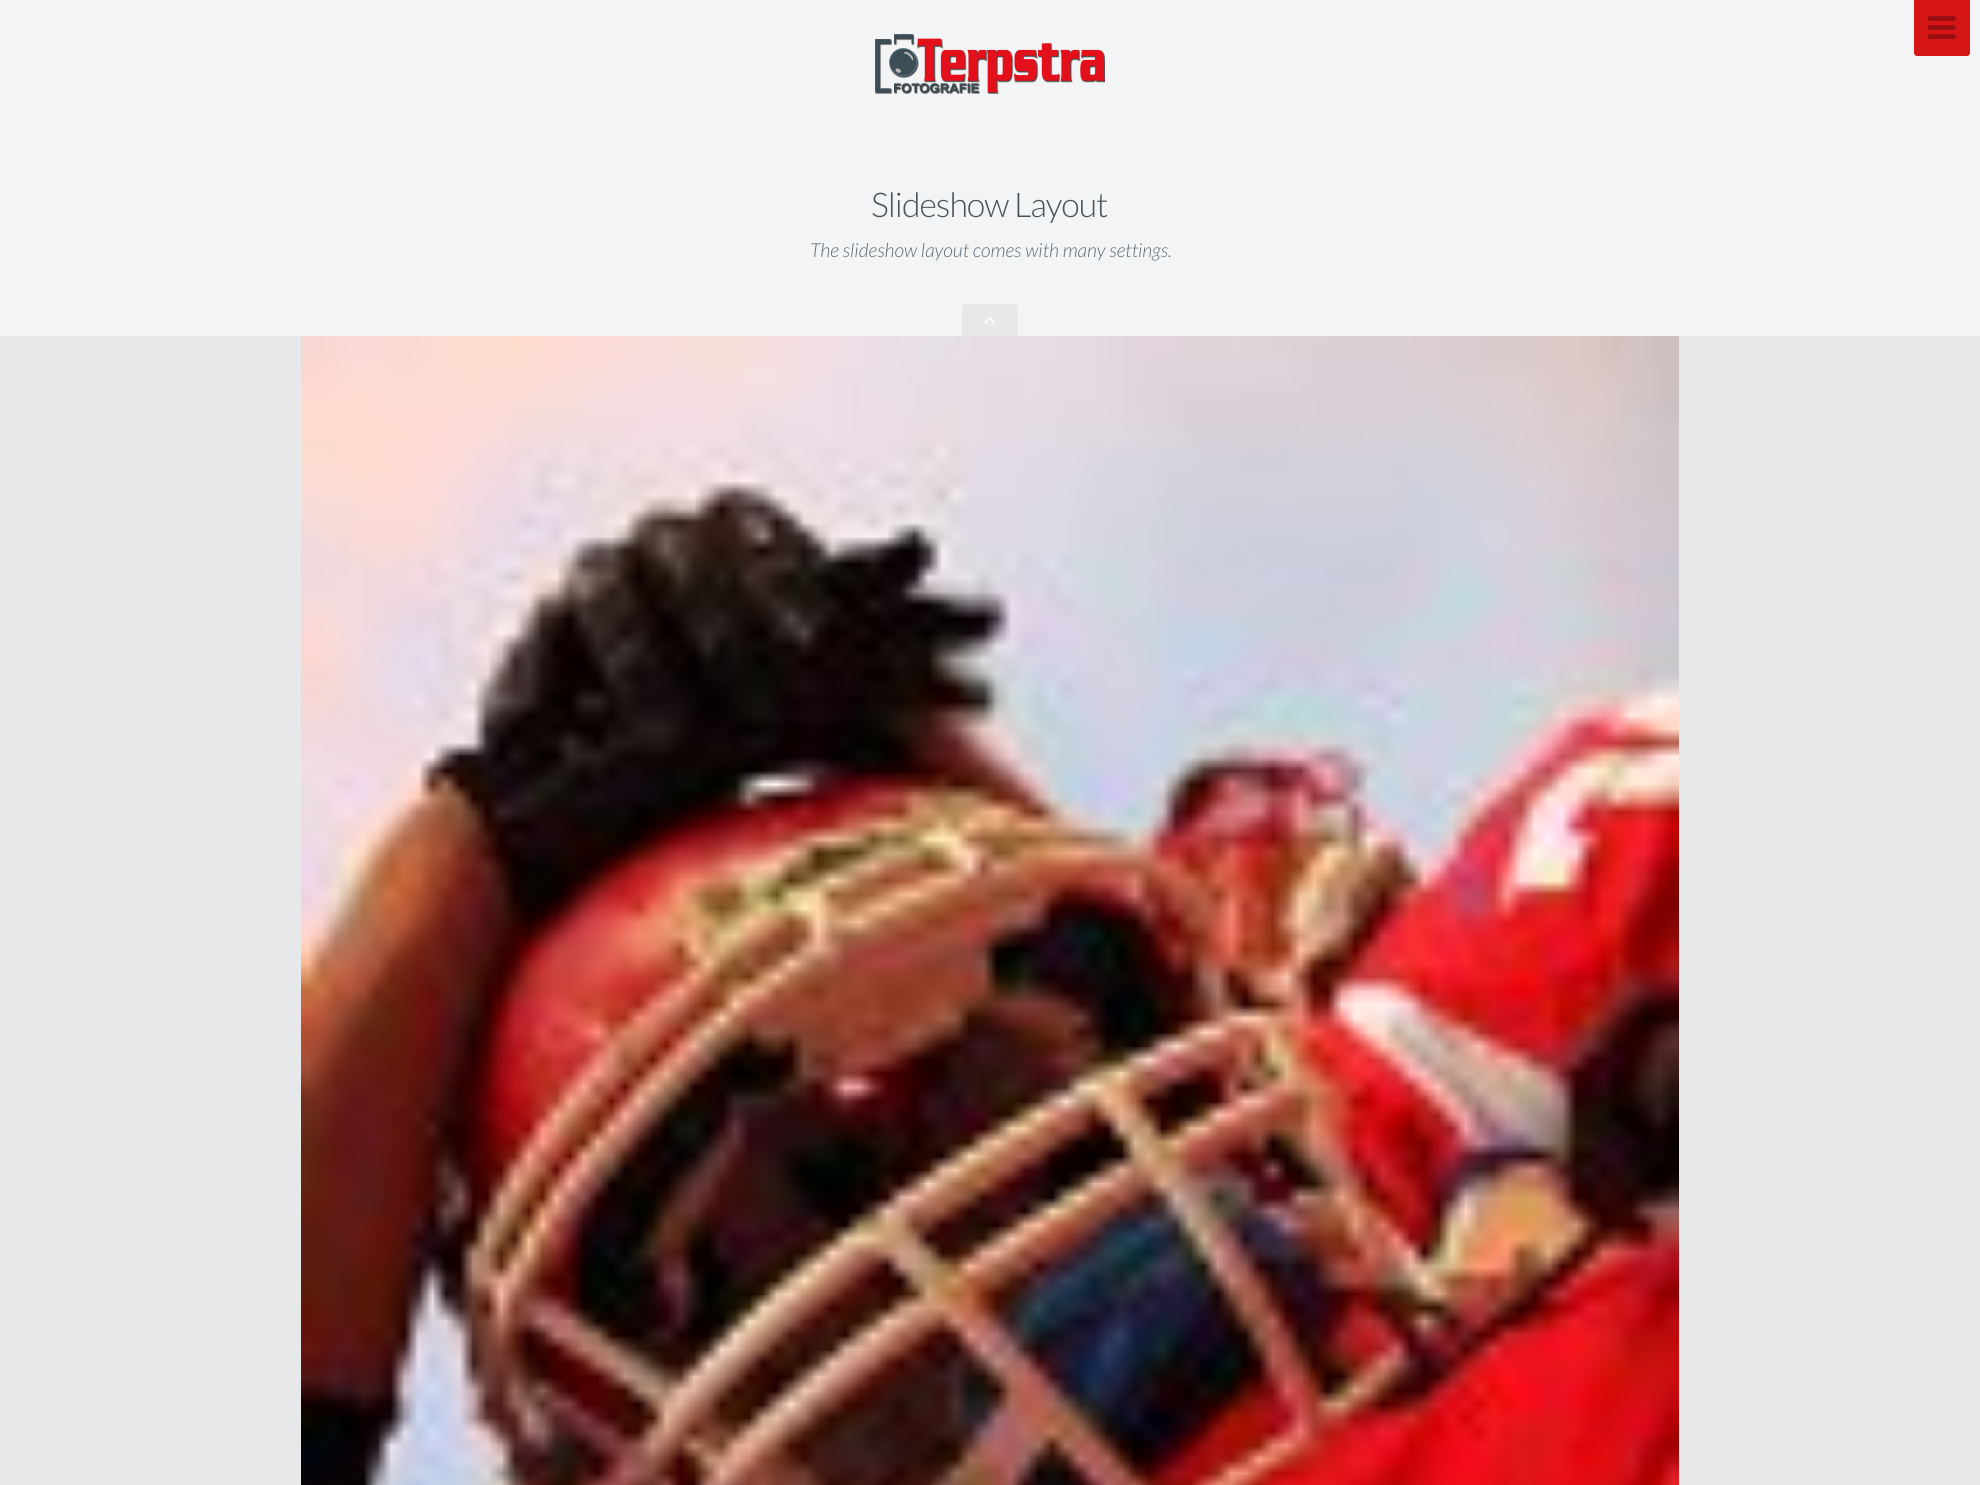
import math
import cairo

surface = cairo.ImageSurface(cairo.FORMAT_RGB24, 1980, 1485)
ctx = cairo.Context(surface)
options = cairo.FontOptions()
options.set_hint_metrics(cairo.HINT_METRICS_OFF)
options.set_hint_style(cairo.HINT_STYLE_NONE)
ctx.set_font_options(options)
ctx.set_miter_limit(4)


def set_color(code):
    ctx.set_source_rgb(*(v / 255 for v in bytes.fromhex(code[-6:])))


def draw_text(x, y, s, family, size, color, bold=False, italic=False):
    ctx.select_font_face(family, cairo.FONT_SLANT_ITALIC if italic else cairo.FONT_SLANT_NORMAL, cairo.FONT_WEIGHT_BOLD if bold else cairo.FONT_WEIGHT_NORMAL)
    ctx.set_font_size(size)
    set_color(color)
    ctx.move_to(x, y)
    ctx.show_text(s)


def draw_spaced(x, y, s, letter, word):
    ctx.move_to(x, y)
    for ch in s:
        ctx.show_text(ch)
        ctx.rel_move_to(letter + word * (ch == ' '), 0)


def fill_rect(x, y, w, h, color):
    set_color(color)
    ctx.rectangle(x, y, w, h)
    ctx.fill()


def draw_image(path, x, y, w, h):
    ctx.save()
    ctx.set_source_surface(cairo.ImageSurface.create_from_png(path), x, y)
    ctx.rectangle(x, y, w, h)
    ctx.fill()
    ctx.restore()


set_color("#f3f4f5")
ctx.paint()
set_color("#d61515")
ctx.new_path()
ctx.move_to(1914, 0)
ctx.line_to(1970, 0)
ctx.line_to(1970, 53)
ctx.curve_to(1970, 54.5, 1968.5, 56, 1967, 56)
ctx.line_to(1917, 56)
ctx.curve_to(1915.5, 56, 1914, 54.5, 1914, 53)
ctx.close_path()
ctx.fill()
draw_image("assets/img1.png", 1928, 16, 28, 23)
draw_image("assets/img2.png", 875, 34, 230, 60)
ctx.select_font_face("Lato Light")
ctx.set_font_size(34)
set_color("#48545a")
draw_spaced(871, 217, "Slideshow Layout", -1, 0)
draw_text(810, 257, "The slideshow layout comes with many settings.", "Lato Light", 19.25, "#5b6971", italic=True)
set_color("#e6e8ea")
ctx.new_path()
ctx.move_to(965, 304)
ctx.line_to(1015, 304)
ctx.curve_to(1016.5, 304, 1018, 305.5, 1018, 307)
ctx.line_to(1018, 336)
ctx.line_to(962, 336)
ctx.line_to(962, 307)
ctx.curve_to(962, 305.5, 963.5, 304, 965, 304)
ctx.close_path()
ctx.fill()
draw_image("assets/img3.png", 984, 317, 12, 7)
fill_rect(0, 336, 1980, 1149, "#e6e8ea")
draw_image("assets/img4.png", 301, 336, 1378, 1149)
surface.write_to_png("output.png")
